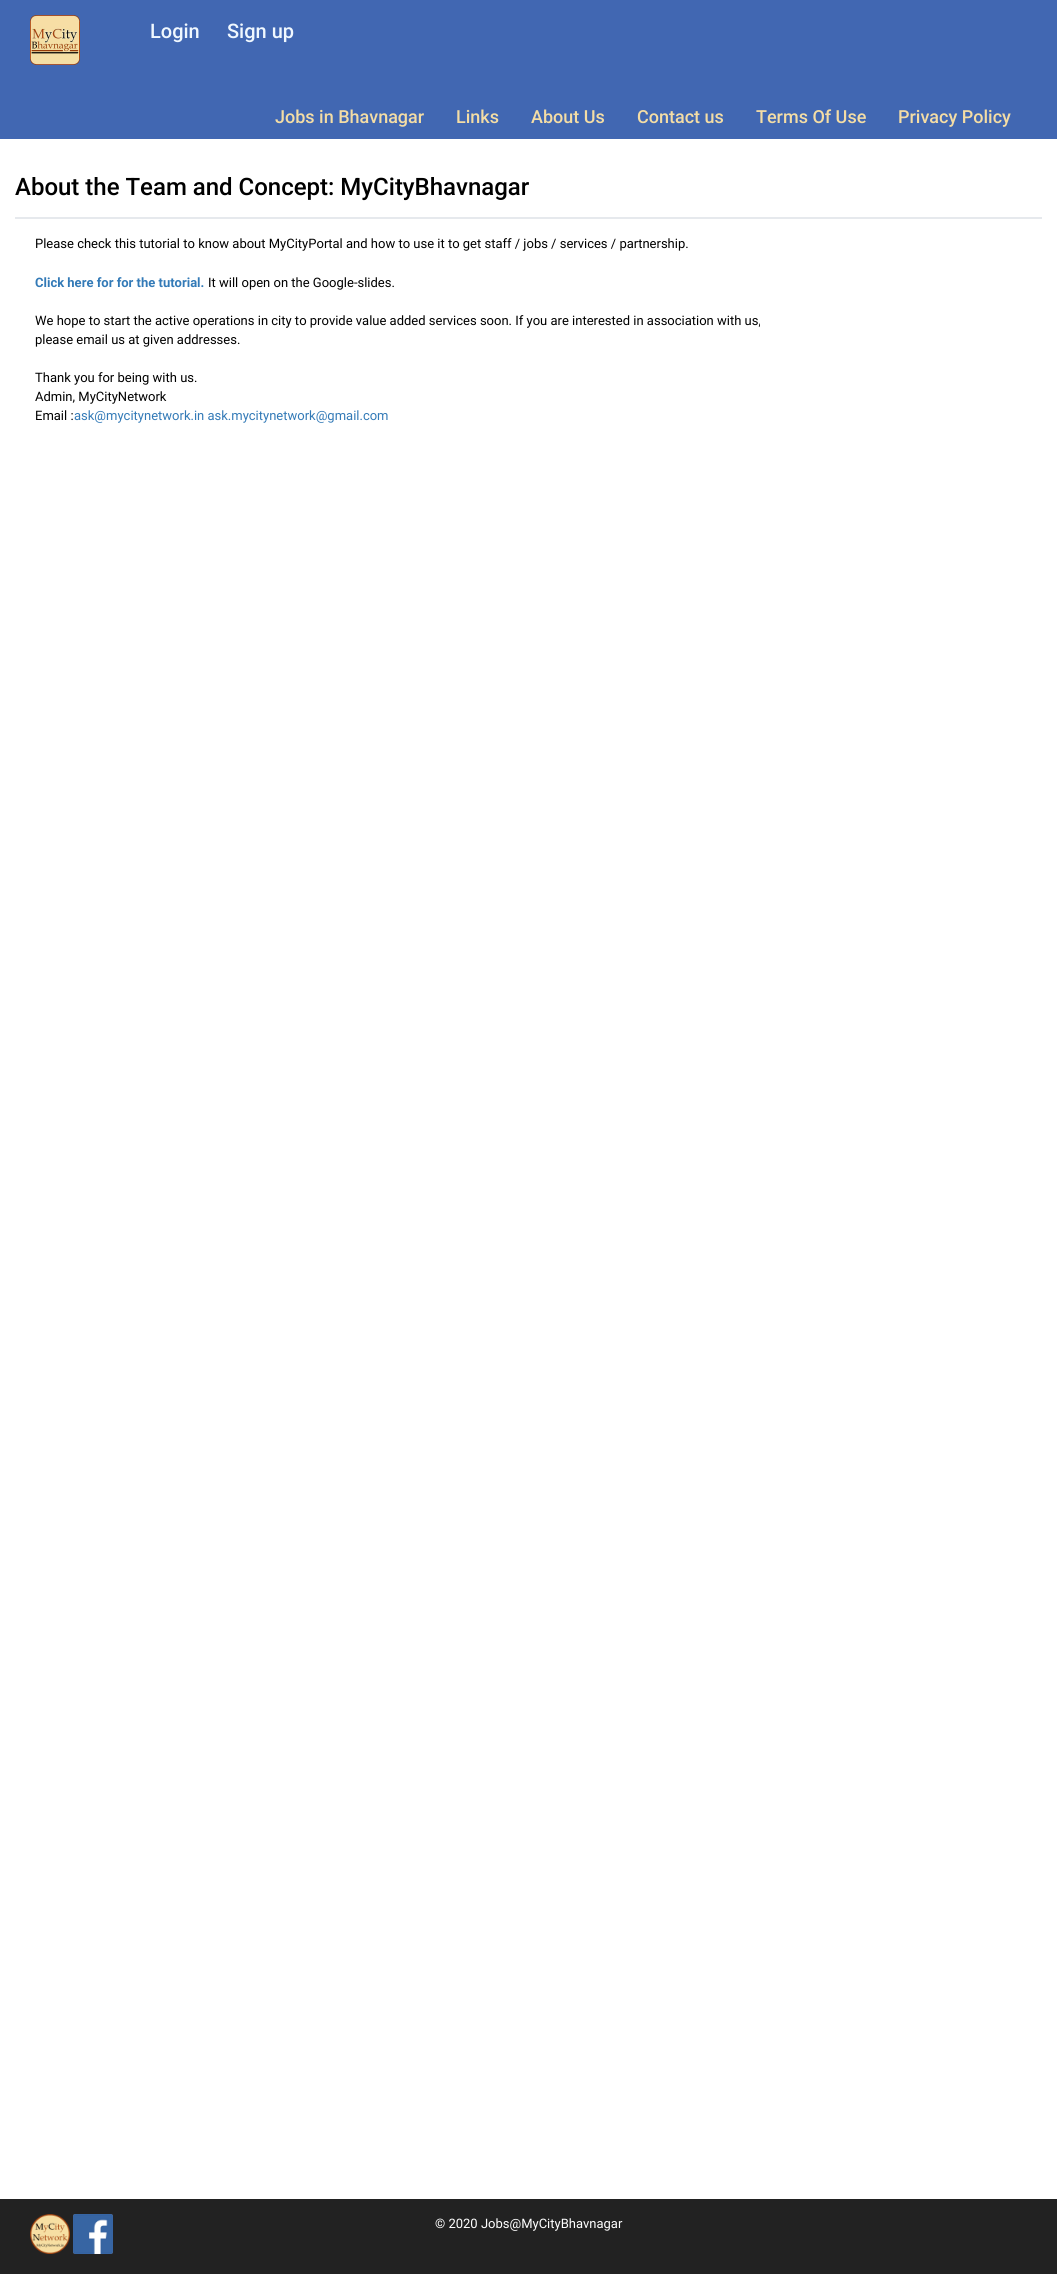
import math
import cairo

surface = cairo.ImageSurface(cairo.FORMAT_RGB24, 1057, 2274)
ctx = cairo.Context(surface)
options = cairo.FontOptions()
options.set_hint_metrics(cairo.HINT_METRICS_OFF)
options.set_hint_style(cairo.HINT_STYLE_NONE)
ctx.set_font_options(options)
ctx.set_miter_limit(4)


def set_color(code):
    ctx.set_source_rgb(*(v / 255 for v in bytes.fromhex(code[-6:])))


def draw_text(x, y, s, family, size, color, bold=False, italic=False):
    ctx.select_font_face(family, cairo.FONT_SLANT_ITALIC if italic else cairo.FONT_SLANT_NORMAL, cairo.FONT_WEIGHT_BOLD if bold else cairo.FONT_WEIGHT_NORMAL)
    ctx.set_font_size(size)
    set_color(color)
    ctx.move_to(x, y)
    ctx.show_text(s)


def fill_rect(x, y, w, h, color):
    set_color(color)
    ctx.rectangle(x, y, w, h)
    ctx.fill()


def draw_image(path, x, y, w, h):
    ctx.save()
    ctx.set_source_surface(cairo.ImageSurface.create_from_png(path), x, y)
    ctx.rectangle(x, y, w, h)
    ctx.fill()
    ctx.restore()


set_color("#ffffff")
ctx.paint()
fill_rect(0, 0, 1057, 139, "#4167b2")
draw_image("assets/img1.png", 30, 15, 50, 50)
draw_text(150, 38, "Login", "Roboto Medium", 20, "#f0f8ff")
draw_text(227, 38, "Sign up", "Roboto Medium", 20, "#f0f8ff")
draw_text(275, 123, "Jobs in Bhavnagar", "Roboto Medium", 18, "#f4dda5")
draw_text(456, 123, "Links", "Roboto Medium", 18, "#f4dda5")
draw_text(531, 123, "About Us", "Roboto Medium", 18, "#f4dda5")
draw_text(637, 123, "Contact us", "Roboto Medium", 18, "#f4dda5")
draw_text(756, 123, "Terms Of Use", "Roboto Medium", 18, "#f4dda5")
draw_text(898, 123, "Privacy Policy", "Roboto Medium", 18, "#f4dda5")
draw_text(15, 195, "About the Team and Concept: MyCityBhavnagar", "Roboto Medium", 24, "#000000")
fill_rect(15, 217, 1027, 2, "#e6e9ed")
draw_text(35, 248, "Please check this tutorial to know about MyCityPortal and how to use it to get staff / jobs / services / partnership.", "Roboto", 13, "#000000")
draw_text(35, 287, "Click here for for the tutorial.", "Roboto", 13, "#337ab7", bold=True)
draw_text(208, 287, "It will open on the Google-slides.", "Roboto", 13, "#000000")
draw_text(35, 325, "We hope to start the active operations in city to provide value added services soon. If you are interested in association with us,", "Roboto", 13, "#000000")
draw_text(35, 344, "please email us at given addresses.", "Roboto", 13, "#000000")
draw_text(35, 382, "Thank you for being with us.", "Roboto", 13, "#000000")
draw_text(35, 401, "Admin, MyCityNetwork", "Roboto", 13, "#000000")
draw_text(35, 420, "Email :", "Roboto", 13, "#000000")
draw_text(74, 420, "ask@mycitynetwork.in ask.mycitynetwork@gmail.com", "Roboto", 13, "#337ab7")
fill_rect(0, 2199, 1057, 75, "#222222")
draw_image("assets/img2.png", 30, 2214, 40, 40)
draw_image("assets/img3.png", 73, 2214, 40, 40)
draw_text(435, 2228, "© 2020 Jobs@MyCityBhavnagar", "Roboto", 13, "#ffffff")
surface.write_to_png("output.png")
